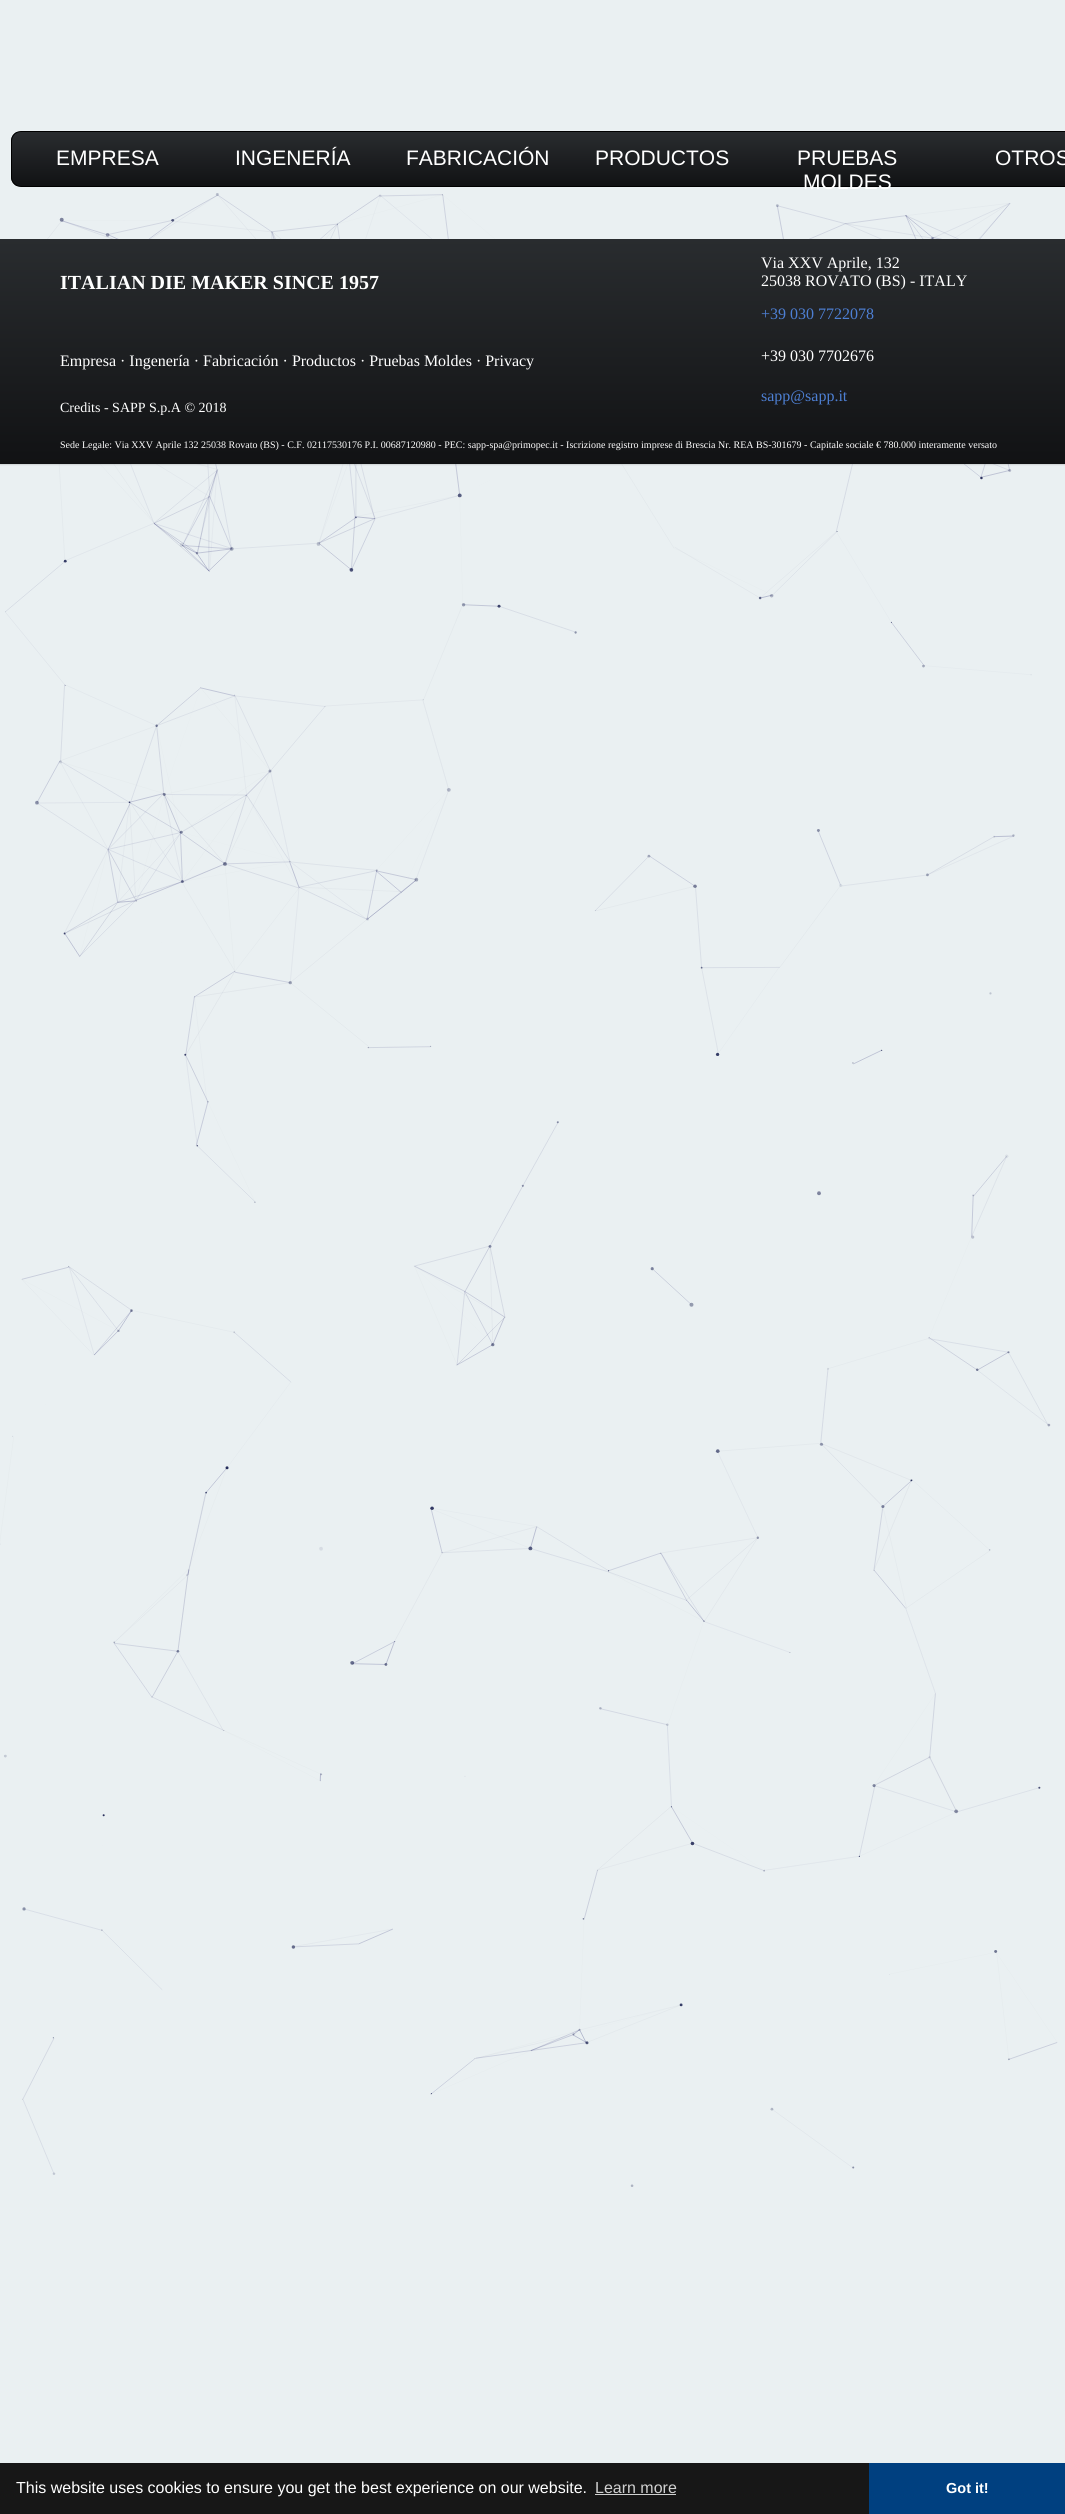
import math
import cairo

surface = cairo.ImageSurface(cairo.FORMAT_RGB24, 1065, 2514)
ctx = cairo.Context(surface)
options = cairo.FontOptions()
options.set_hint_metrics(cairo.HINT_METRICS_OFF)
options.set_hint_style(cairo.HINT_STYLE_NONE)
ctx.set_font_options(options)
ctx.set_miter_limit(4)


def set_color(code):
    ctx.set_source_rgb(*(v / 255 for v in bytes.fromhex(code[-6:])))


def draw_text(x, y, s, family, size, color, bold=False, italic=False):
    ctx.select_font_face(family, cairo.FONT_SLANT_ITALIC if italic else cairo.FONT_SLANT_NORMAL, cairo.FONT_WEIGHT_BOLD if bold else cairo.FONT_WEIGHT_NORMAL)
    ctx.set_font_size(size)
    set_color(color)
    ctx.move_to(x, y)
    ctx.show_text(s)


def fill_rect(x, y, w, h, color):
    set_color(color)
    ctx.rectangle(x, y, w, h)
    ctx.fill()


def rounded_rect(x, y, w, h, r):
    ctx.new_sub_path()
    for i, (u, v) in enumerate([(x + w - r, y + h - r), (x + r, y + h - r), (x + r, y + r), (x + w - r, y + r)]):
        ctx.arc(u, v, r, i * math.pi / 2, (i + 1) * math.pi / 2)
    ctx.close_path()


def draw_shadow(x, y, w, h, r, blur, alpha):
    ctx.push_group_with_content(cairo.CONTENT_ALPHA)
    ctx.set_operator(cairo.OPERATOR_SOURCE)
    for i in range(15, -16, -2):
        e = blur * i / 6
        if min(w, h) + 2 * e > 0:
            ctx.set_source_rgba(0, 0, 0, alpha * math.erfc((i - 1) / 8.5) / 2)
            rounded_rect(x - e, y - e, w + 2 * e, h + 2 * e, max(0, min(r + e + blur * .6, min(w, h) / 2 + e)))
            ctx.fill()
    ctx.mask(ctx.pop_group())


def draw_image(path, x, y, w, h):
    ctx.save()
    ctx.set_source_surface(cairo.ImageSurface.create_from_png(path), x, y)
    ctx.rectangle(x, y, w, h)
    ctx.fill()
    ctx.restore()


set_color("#eaf0f2")
ctx.paint()
ctx.save()
rounded_rect(11, 131, 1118, 56, 10)
ctx.clip()
gradient = cairo.LinearGradient(570, 132, 570, 186)
gradient.add_color_stop_rgba(0, 0.161, 0.173, 0.184, 1)
gradient.add_color_stop_rgba(1, 0.067, 0.071, 0.078, 1)
ctx.set_source(gradient)
ctx.rectangle(11, 132, 1054, 54)
ctx.fill()
ctx.restore()
rounded_rect(11.5, 131.5, 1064, 55, 9.5)
set_color("#000000")
ctx.set_line_width(1)
ctx.stroke()
gradient = cairo.LinearGradient(108, 134, 108, 184)
gradient.add_color_stop_rgba(0, 0.161, 0.173, 0.184, 1)
gradient.add_color_stop_rgba(1, 0.067, 0.071, 0.078, 1)
ctx.set_source(gradient)
ctx.rectangle(15, 134, 1, 1)
ctx.fill()
draw_text(56, 165, "EMPRESA", "Liberation Sans", 21, "#ffffff")
draw_text(235, 165, "INGENERÍA", "Liberation Sans", 21, "#ffffff")
draw_text(406, 165, "FABRICACIÓN", "Liberation Sans", 21, "#ffffff")
draw_text(595, 165, "PRODUCTOS", "Liberation Sans", 21, "#ffffff")
draw_text(797, 165, "PRUEBAS", "Liberation Sans", 21, "#ffffff")
draw_text(803, 189, "MOLDES", "Liberation Sans", 21, "#ffffff")
draw_text(995, 165, "OTROS", "Liberation Sans", 21, "#ffffff")
draw_image("assets/img1.png", 0, 193, 1058, 1994)
set_color("#000000")
draw_shadow(0, 240, 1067, 225, 0, 0.5, 0.12)
gradient = cairo.LinearGradient(570, 239, 570, 464)
gradient.add_color_stop_rgba(0, 0.161, 0.173, 0.184, 1)
gradient.add_color_stop_rgba(1, 0.067, 0.071, 0.078, 1)
ctx.set_source(gradient)
ctx.rectangle(0, 239, 1065, 225)
ctx.fill()
draw_text(60, 289, "ITALIAN DIE MAKER SINCE 1957", "Liberation Serif", 20, "#ffffff", bold=True)
draw_text(60, 366, "Empresa · Ingenería · Fabricación · Productos · Pruebas Moldes · Privacy", "Liberation Serif", 16, "#ffffff")
draw_text(60, 412, "Credits - SAPP S.p.A © 2018", "Liberation Serif", 14, "#ffffff")
draw_text(761, 268, "Via XXV Aprile, 132", "Liberation Serif", 16, "#ffffff")
draw_text(761, 286, "25038 ROVATO (BS) - ITALY", "Liberation Serif", 16, "#ffffff")
draw_text(761, 319, "+39 030 7722078", "Liberation Serif", 16, "#4d7fd3")
draw_text(761, 361, "+39 030 7702676", "Liberation Serif", 16, "#ffffff")
draw_text(761, 401, "sapp@sapp.it", "Liberation Serif", 16, "#4d7fd3")
draw_text(60, 448, "Sede Legale: Via XXV Aprile 132 25038 Rovato (BS) - C.F. 02117530176 P.I. 00687120980 - PEC: sapp-spa@primopec.it - Iscrizione registro imprese di Brescia Nr. REA BS-301679 - Capitale sociale € 780.000 interamente versato", "Liberation Serif", 10, "#ffffff")
fill_rect(0, 2463, 869, 51, "#171717")
draw_text(16, 2493, "This website uses cookies to ensure you get the best experience on our website.", "Liberation Sans", 16, "#ffffff")
draw_text(595, 2493, "Learn more", "Liberation Sans", 16, "#d1d1d1")
fill_rect(595, 2494, 81, 1, "#d1d1d1")
fill_rect(869, 2463, 196, 51, "#004080")
draw_text(946, 2493, "Got it!", "Liberation Sans", 14.5, "#ffffff", bold=True)
surface.write_to_png("output.png")
